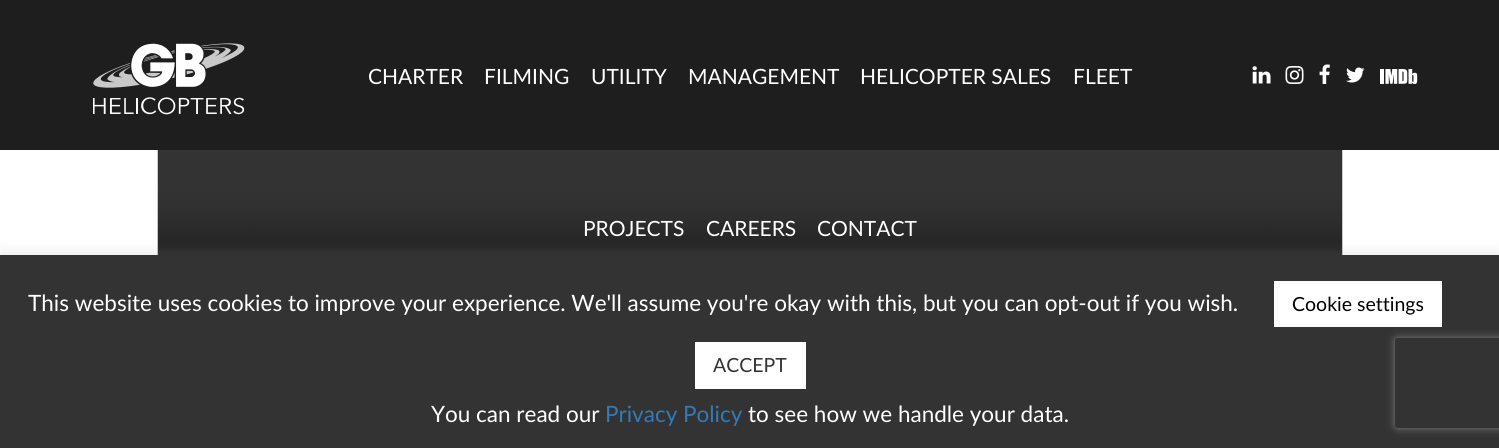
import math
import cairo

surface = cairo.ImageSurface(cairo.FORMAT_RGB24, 1499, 448)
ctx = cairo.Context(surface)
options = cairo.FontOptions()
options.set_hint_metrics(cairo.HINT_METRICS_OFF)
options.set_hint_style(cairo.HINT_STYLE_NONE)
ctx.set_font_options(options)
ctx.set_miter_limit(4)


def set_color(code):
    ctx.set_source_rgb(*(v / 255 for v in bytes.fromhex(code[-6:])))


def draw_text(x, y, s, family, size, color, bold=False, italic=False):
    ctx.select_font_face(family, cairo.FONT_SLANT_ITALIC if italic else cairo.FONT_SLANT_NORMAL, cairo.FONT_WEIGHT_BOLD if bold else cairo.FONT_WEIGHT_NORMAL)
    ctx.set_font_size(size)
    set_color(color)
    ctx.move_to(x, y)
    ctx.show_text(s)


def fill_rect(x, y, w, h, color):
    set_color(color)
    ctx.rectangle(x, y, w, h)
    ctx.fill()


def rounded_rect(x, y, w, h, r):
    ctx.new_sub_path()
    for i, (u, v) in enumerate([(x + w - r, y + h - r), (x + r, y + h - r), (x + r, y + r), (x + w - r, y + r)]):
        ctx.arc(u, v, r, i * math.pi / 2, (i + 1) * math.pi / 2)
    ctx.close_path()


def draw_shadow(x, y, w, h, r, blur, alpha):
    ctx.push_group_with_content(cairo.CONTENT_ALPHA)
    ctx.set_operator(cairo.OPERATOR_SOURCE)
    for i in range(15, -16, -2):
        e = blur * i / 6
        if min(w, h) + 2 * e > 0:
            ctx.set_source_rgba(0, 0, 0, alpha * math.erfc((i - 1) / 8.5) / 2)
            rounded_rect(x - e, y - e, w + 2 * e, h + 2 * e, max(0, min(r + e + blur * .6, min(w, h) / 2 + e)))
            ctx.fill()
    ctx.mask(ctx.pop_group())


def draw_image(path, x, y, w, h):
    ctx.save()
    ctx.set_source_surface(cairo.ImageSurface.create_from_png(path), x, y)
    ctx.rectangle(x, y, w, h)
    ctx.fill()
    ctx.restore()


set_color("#ffffff")
ctx.paint()
fill_rect(0, 0, 1499, 150, "#1e1e1e")
draw_image("assets/img1.png", 93, 43, 152, 72)
draw_text(368, 84, "CHARTER", "Lato", 21, "#ffffff")
draw_text(484, 84, "FILMING", "Lato", 21, "#ffffff")
draw_text(591, 84, "UTILITY", "Lato", 21, "#ffffff")
draw_text(688, 84, "MANAGEMENT", "Lato", 21, "#ffffff")
draw_text(860, 84, "HELICOPTER SALES", "Lato", 21, "#ffffff")
draw_text(1073, 84, "FLEET", "Lato", 21, "#ffffff")
draw_image("assets/img7.png", 157, 150, 1186, 105)
draw_text(583, 236, "PROJECTS", "Lato", 21, "#ffffff")
draw_text(706, 236, "CAREERS", "Lato", 21, "#ffffff")
draw_text(817, 236, "CONTACT", "Lato", 21, "#ffffff")
draw_image("assets/img2.png", 1252, 66, 19, 18)
draw_image("assets/img3.png", 1285, 66, 19, 18)
draw_image("assets/img4.png", 1319, 64, 11, 20)
draw_image("assets/img5.png", 1346, 67, 19, 16)
draw_image("assets/img6.png", 1380, 69, 38, 15)
set_color("#acabab")
draw_shadow(0, 254, 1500, 193, 0, 7.5, 0.3)
fill_rect(0, 255, 1499, 193, "#333333")
draw_text(28, 311, "This website uses cookies to improve your experience. We'll assume you're okay with this, but you can opt-out if you wish.", "Lato", 22.5, "#ffffff")
fill_rect(1274, 281, 168, 46, "#ffffff")
draw_text(1292, 311, "Cookie settings", "Lato", 19.5, "#000000")
fill_rect(695, 342, 111, 47, "#ffffff")
draw_text(713, 372, "ACCEPT", "Lato", 19.5, "#333333")
draw_text(431, 422, "You can read our", "Lato", 22.5, "#ffffff")
draw_text(605, 422, "Privacy Policy", "Lato", 22.5, "#337ab7")
draw_text(748, 422, "to see how we handle your data.", "Lato", 22.5, "#ffffff")
ctx.save()
ctx.set_fill_rule(cairo.FILL_RULE_EVEN_ODD)
ctx.new_path()
ctx.move_to(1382, 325)
ctx.line_to(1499, 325)
ctx.line_to(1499, 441)
ctx.line_to(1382, 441)
ctx.close_path()
ctx.move_to(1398, 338)
ctx.line_to(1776, 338)
ctx.curve_to(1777.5, 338, 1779, 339.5, 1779, 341)
ctx.line_to(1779, 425)
ctx.curve_to(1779, 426.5, 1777.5, 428, 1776, 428)
ctx.line_to(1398, 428)
ctx.curve_to(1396.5, 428, 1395, 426.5, 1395, 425)
ctx.line_to(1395, 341)
ctx.curve_to(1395, 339.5, 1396.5, 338, 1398, 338)
ctx.close_path()
ctx.clip()
set_color("#808080")
draw_shadow(1395, 338, 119, 90, 3, 4, 1)
ctx.restore()
surface.write_to_png("output.png")
